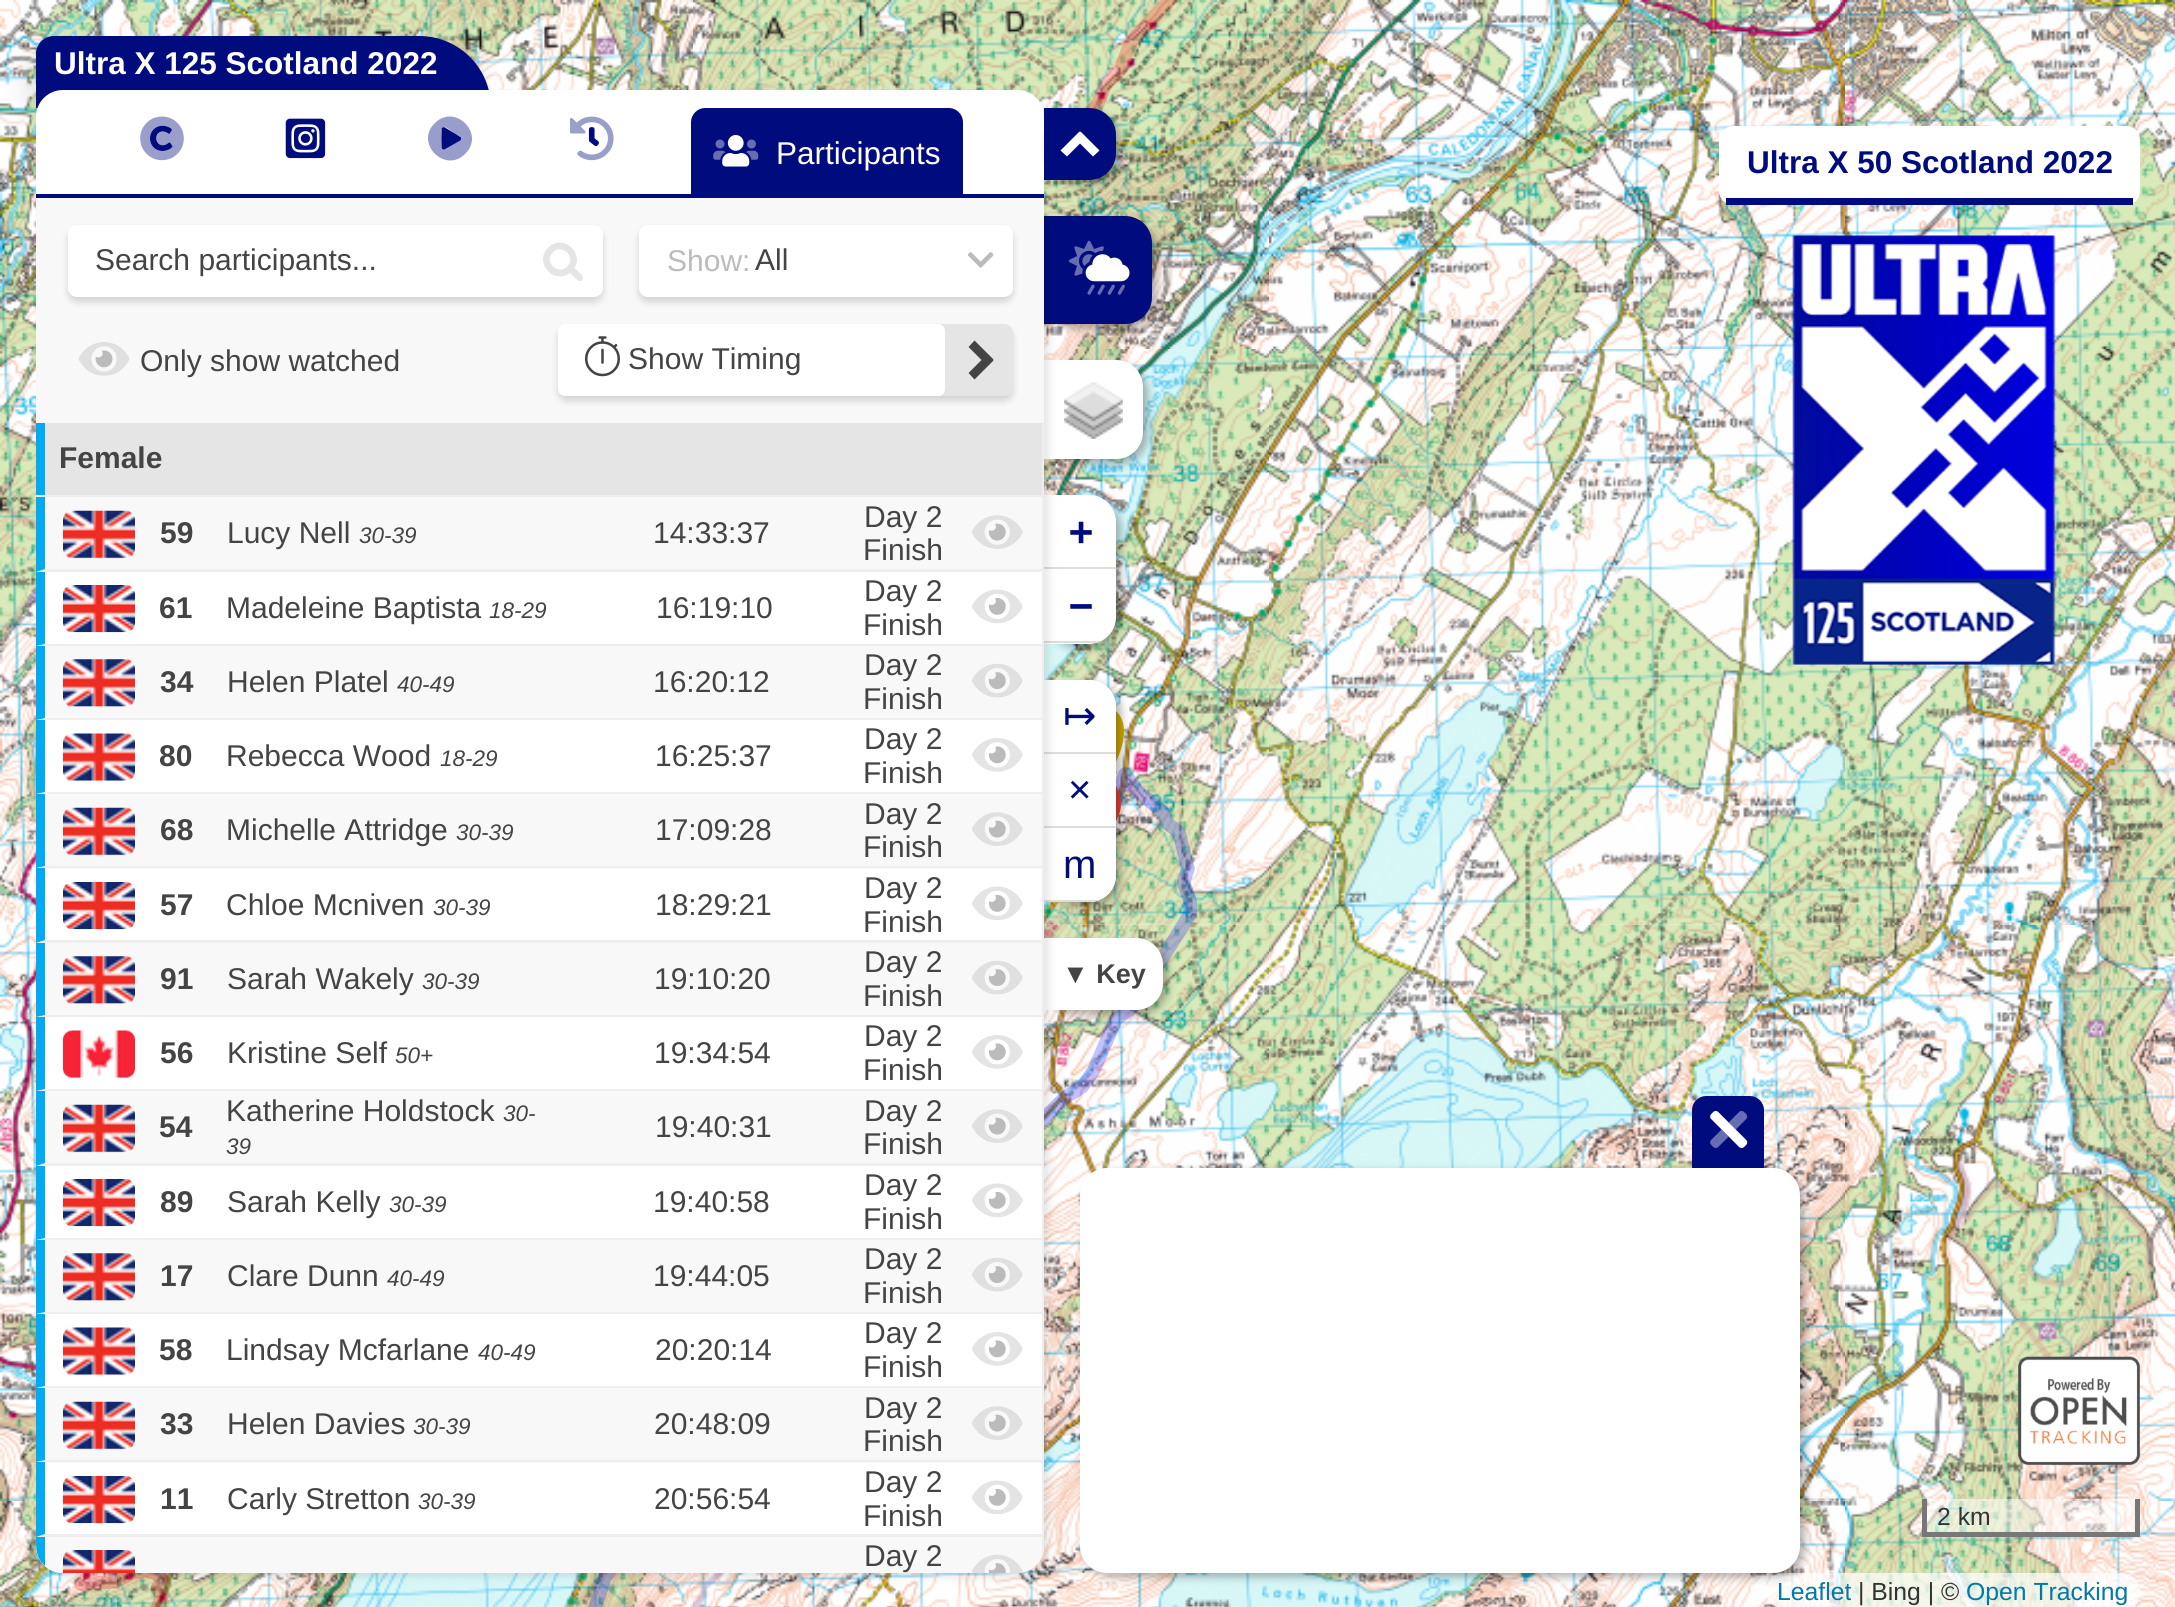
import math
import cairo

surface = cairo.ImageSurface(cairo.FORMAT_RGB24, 2175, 1607)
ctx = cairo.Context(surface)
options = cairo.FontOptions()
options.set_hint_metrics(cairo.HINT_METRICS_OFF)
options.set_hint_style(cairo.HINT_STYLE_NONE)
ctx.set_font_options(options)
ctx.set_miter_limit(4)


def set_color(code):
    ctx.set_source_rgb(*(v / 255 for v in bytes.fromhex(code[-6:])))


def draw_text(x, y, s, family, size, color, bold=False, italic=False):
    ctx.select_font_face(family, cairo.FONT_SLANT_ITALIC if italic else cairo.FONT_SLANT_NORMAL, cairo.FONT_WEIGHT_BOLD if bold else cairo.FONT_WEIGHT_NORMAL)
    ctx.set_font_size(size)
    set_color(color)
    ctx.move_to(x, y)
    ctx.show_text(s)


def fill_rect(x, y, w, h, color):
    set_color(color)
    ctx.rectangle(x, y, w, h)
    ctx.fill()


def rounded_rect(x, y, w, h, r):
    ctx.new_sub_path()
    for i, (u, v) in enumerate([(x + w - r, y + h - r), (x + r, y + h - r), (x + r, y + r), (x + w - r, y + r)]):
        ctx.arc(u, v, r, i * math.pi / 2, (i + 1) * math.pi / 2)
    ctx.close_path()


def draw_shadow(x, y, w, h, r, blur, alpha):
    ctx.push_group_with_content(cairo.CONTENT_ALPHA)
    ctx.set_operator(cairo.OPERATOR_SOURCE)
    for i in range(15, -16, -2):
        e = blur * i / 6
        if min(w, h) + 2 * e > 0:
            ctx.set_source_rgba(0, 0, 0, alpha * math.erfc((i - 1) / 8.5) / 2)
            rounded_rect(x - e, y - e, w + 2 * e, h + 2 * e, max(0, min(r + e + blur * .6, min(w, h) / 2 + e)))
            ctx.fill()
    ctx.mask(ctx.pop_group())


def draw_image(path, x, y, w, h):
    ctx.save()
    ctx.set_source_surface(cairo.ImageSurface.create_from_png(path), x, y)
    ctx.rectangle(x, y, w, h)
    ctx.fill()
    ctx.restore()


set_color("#ffffff")
ctx.paint()
draw_image("assets/img34.png", 0, 0, 117, 349)
draw_image("assets/img35.png", 117, 0, 576, 90)
draw_image("assets/img36.png", 693, 0, 576, 349)
draw_image("assets/img40.png", 1044, 349, 225, 576)
draw_image("assets/img44.png", 1044, 924, 225, 577)
draw_image("assets/img47.png", 0, 1501, 117, 106)
draw_image("assets/img48.png", 117, 1573, 576, 34)
draw_image("assets/img49.png", 693, 1501, 576, 106)
draw_image("assets/img52.png", 74, 0, 1123, 1607)
set_color("#000000")
draw_shadow(25, 47, 454, 72, 72, 11, 0.1)
set_color("#000c7d")
ctx.new_path()
ctx.move_to(54, 36)
ctx.line_to(419, 36)
ctx.curve_to(459, 36, 491, 68, 491, 108)
ctx.line_to(36, 108)
ctx.line_to(36, 54)
ctx.curve_to(36, 44, 44, 36, 54, 36)
ctx.close_path()
ctx.fill()
draw_text(54, 74, "Ultra X 125 Scotland 2022", "Liberation Sans", 31.5, "#ffffff", bold=True)
set_color("#000000")
draw_shadow(1049, 221, 108, 108, 27, 4.5, 0.3)
set_color("#000c7d")
ctx.new_path()
ctx.move_to(1044, 216)
ctx.line_to(1125, 216)
ctx.curve_to(1140, 216, 1152, 228, 1152, 243)
ctx.line_to(1152, 297)
ctx.curve_to(1152, 312, 1140, 324, 1125, 324)
ctx.line_to(1044, 324)
ctx.close_path()
ctx.fill()
set_color("#000000")
draw_shadow(41, 95, 1008, 108, 27, 4.5, 0.1)
set_color("#ffffff")
ctx.new_path()
ctx.move_to(63, 90)
ctx.line_to(1017, 90)
ctx.curve_to(1032, 90, 1044, 102, 1044, 117)
ctx.line_to(1044, 198)
ctx.line_to(36, 198)
ctx.line_to(36, 117)
ctx.curve_to(36, 102, 48, 90, 63, 90)
ctx.close_path()
ctx.fill()
fill_rect(36, 194, 1008, 4, "#000c7d")
draw_image("assets/img2.png", 150, 125, 23, 26)
draw_image("assets/img1.png", 140, 116, 44, 45)
draw_image("assets/img3.png", 285, 118, 41, 41)
draw_image("assets/img4.png", 441, 127, 21, 23)
ctx.set_source_rgba(0, 0.047, 0.49, 0.4)
ctx.new_path()
ctx.move_to(435, 123)
ctx.curve_to(455, 103, 486, 134, 465, 154)
ctx.curve_to(445, 174, 414, 143, 435, 123)
ctx.close_path()
ctx.move_to(460, 140)
ctx.curve_to(465, 138, 456, 134, 455, 134)
ctx.curve_to(453, 132, 445, 126, 443, 127)
ctx.curve_to(440, 129, 442, 136, 442, 138)
ctx.curve_to(442, 145, 439, 153, 447, 148)
ctx.close_path()
ctx.fill()
draw_image("assets/img6.png", 588, 127, 11, 20)
draw_image("assets/img5.png", 570, 116, 44, 45)
set_color("#000c7d")
ctx.new_path()
ctx.move_to(705, 108)
ctx.line_to(949, 108)
ctx.curve_to(956.5, 108, 963, 114.5, 963, 122)
ctx.line_to(963, 198)
ctx.line_to(691, 198)
ctx.line_to(691, 122)
ctx.curve_to(691, 114.5, 697.5, 108, 705, 108)
ctx.close_path()
ctx.fill()
draw_image("assets/img7.png", 722, 135, 28, 32)
draw_image("assets/img8.png", 713, 139, 46, 21)
draw_text(776, 164, "Participants", "Liberation Sans", 31.5, "#ffffff")
set_color("#000000")
draw_shadow(1049, 113, 72, 72, 27, 4.5, 0.3)
set_color("#000c7d")
ctx.new_path()
ctx.move_to(1044, 108)
ctx.line_to(1089, 108)
ctx.curve_to(1104, 108, 1116, 120, 1116, 135)
ctx.line_to(1116, 153)
ctx.curve_to(1116, 168, 1104, 180, 1089, 180)
ctx.line_to(1044, 180)
ctx.close_path()
ctx.fill()
set_color("#ffffff")
ctx.new_path()
ctx.move_to(1060.5, 150.5)
ctx.line_to(1079.5, 131.5)
ctx.line_to(1086, 137.5)
ctx.line_to(1067, 156.5)
ctx.close_path()
ctx.fill()
ctx.new_path()
ctx.move_to(1080.5, 131.5)
ctx.line_to(1099.5, 150.5)
ctx.line_to(1093, 156.5)
ctx.line_to(1074, 137.5)
ctx.close_path()
ctx.fill()
draw_image("assets/img39.png", 0, 349, 36, 576)
draw_image("assets/img43.png", 0, 925, 36, 576)
rounded_rect(1057.5, 774.5, 59, 58, 29)
set_color("#f44034")
ctx.set_line_width(9)
ctx.stroke()
set_color("#ffffff")
ctx.new_path()
ctx.move_to(1117, 712)
ctx.curve_to(1134, 729, 1120, 770, 1087, 803)
ctx.curve_to(1053, 770, 1040, 729, 1057, 712)
ctx.curve_to(1073, 696, 1100, 696, 1117, 712)
ctx.close_path()
ctx.fill()
gradient = cairo.LinearGradient(1029, 739, 1144, 739)
gradient.add_color_stop_rgba(0, 0.945, 0.792, 0.016, 1)
gradient.add_color_stop_rgba(1, 0.788, 0.635, 0, 1)
ctx.set_source(gradient)
ctx.new_path()
ctx.move_to(1117, 712)
ctx.curve_to(1129, 724, 1125, 748, 1110, 773)
ctx.line_to(1087, 797)
ctx.line_to(1063, 773)
ctx.curve_to(1048, 748, 1045, 724, 1057, 712)
ctx.curve_to(1073, 696, 1100, 696, 1117, 712)
ctx.close_path()
ctx.fill()
set_color("#000000")
draw_shadow(1049, 365, 99, 99, 27, 4.5, 0.3)
set_color("#ffffff")
ctx.new_path()
ctx.move_to(1044, 360)
ctx.line_to(1116, 360)
ctx.curve_to(1131, 360, 1143, 372, 1143, 387)
ctx.line_to(1143, 432)
ctx.curve_to(1143, 447, 1131, 459, 1116, 459)
ctx.line_to(1044, 459)
ctx.close_path()
ctx.fill()
set_color("#000000")
draw_shadow(1049, 500, 72, 148, 27, 4.5, 0.3)
set_color("#ffffff")
ctx.new_path()
ctx.move_to(1044, 495)
ctx.line_to(1089, 495)
ctx.curve_to(1104, 495, 1116, 507, 1116, 522)
ctx.line_to(1116, 569)
ctx.line_to(1044, 569)
ctx.close_path()
ctx.fill()
fill_rect(1044, 567, 72, 2, "#dddddd")
set_color("#ffffff")
ctx.new_path()
ctx.move_to(1044, 569)
ctx.line_to(1116, 569)
ctx.line_to(1116, 617)
ctx.curve_to(1116, 632, 1104, 644, 1089, 644)
ctx.line_to(1044, 644)
ctx.close_path()
ctx.fill()
ctx.save()
ctx.new_path()
ctx.move_to(1044, 495)
ctx.line_to(1089, 495)
ctx.curve_to(1104, 495, 1116, 507, 1116, 522)
ctx.line_to(1116, 617)
ctx.curve_to(1116, 632, 1104, 644, 1089, 644)
ctx.line_to(1044, 644)
ctx.close_path()
ctx.clip()
fill_rect(1044, 641, 58, 2, "#dddddd")
ctx.restore()
set_color("#c9a200")
ctx.new_path()
ctx.move_to(1114, 769.5)
ctx.line_to(1117, 772.5)
ctx.line_to(1087, 803)
ctx.line_to(1083.5, 800)
ctx.close_path()
ctx.fill()
set_color("#000000")
draw_shadow(1049, 684, 72, 223, 27, 4.5, 0.3)
set_color("#ffffff")
ctx.new_path()
ctx.move_to(1044, 680)
ctx.line_to(1089, 680)
ctx.curve_to(1104, 680, 1116, 692, 1116, 707)
ctx.line_to(1116, 875)
ctx.curve_to(1116, 890, 1104, 902, 1089, 902)
ctx.line_to(1044, 902)
ctx.close_path()
ctx.fill()
ctx.new_path()
ctx.move_to(1044, 680)
ctx.line_to(1089, 680)
ctx.curve_to(1104, 680, 1116, 692, 1116, 707)
ctx.line_to(1116, 754)
ctx.line_to(1044, 754)
ctx.close_path()
ctx.fill()
fill_rect(1044, 752, 72, 2, "#dddddd")
fill_rect(1044, 826, 72, 2, "#dddddd")
set_color("#ffffff")
ctx.new_path()
ctx.move_to(1044, 828)
ctx.line_to(1116, 828)
ctx.line_to(1116, 875)
ctx.curve_to(1116, 890, 1104, 902, 1089, 902)
ctx.line_to(1044, 902)
ctx.close_path()
ctx.fill()
ctx.save()
ctx.new_path()
ctx.move_to(1044, 680)
ctx.line_to(1089, 680)
ctx.curve_to(1104, 680, 1116, 692, 1116, 707)
ctx.line_to(1116, 875)
ctx.curve_to(1116, 890, 1104, 902, 1089, 902)
ctx.line_to(1044, 902)
ctx.close_path()
ctx.clip()
fill_rect(1044, 900, 55, 2, "#dddddd")
ctx.restore()
set_color("#000000")
draw_shadow(1049, 943, 119, 72, 27, 4.5, 0.3)
set_color("#ffffff")
ctx.new_path()
ctx.move_to(1044, 938)
ctx.line_to(1136, 938)
ctx.curve_to(1151, 938, 1163, 950, 1163, 965)
ctx.line_to(1163, 983)
ctx.curve_to(1163, 998, 1151, 1010, 1136, 1010)
ctx.line_to(1044, 1010)
ctx.close_path()
ctx.fill()
set_color("#000000")
draw_shadow(41, 203, 1008, 1374, 27, 4.5, 0.1)
set_color("#f8f8f8")
ctx.new_path()
ctx.move_to(36, 198)
ctx.line_to(1044, 198)
ctx.line_to(1044, 1546)
ctx.curve_to(1044, 1561, 1032, 1573, 1017, 1573)
ctx.line_to(63, 1573)
ctx.curve_to(48, 1573, 36, 1561, 36, 1546)
ctx.close_path()
ctx.fill()
set_color("#000000")
draw_shadow(68, 230, 535, 72, 9, 3.5, 0.15)
set_color("#ffffff")
rounded_rect(68, 225, 535, 72, 9)
ctx.fill()
draw_text(95, 270, "Search participants...", "Liberation Sans", 30, "#444444")
ctx.new_path()
ctx.move_to(550.5, 250)
ctx.curve_to(563, 237.5, 582, 256.5, 569.5, 269)
ctx.curve_to(557, 281.5, 538, 262.5, 550.5, 250)
ctx.close_path()
set_color("#e5e5e5")
ctx.set_line_width(6.8)
ctx.stroke()
ctx.new_path()
ctx.move_to(569.5, 267.5)
ctx.curve_to(572.5, 264.5, 576, 269.5, 578, 271.5)
ctx.curve_to(580, 273.5, 585.5, 277, 582, 280)
ctx.curve_to(579, 283.5, 575.5, 278, 573.5, 276.5)
ctx.curve_to(571.5, 274.5, 566, 270.5, 569.5, 267.5)
ctx.close_path()
ctx.fill()
set_color("#000000")
draw_shadow(639, 230, 374, 72, 9, 3.5, 0.15)
set_color("#ffffff")
rounded_rect(639, 225, 374, 72, 9)
ctx.fill()
draw_text(667, 271, "Show:", "Liberation Sans", 30, "#bbbbbb")
draw_text(755, 270, "All", "Liberation Sans", 30, "#444444")
draw_image("assets/img9.png", 967, 252, 27, 16)
draw_image("assets/img11.png", 95, 350, 18, 18)
draw_image("assets/img10.png", 78, 342, 52, 34)
draw_text(140, 371, "Only show watched", "Liberation Sans", 30, "#444444")
set_color("#000000")
draw_shadow(558, 329, 455, 72, 9, 3.5, 0.15)
set_color("#e5e5e5")
rounded_rect(558, 324, 455, 72, 9)
ctx.fill()
set_color("#ffffff")
rounded_rect(558, 324, 387, 72, 7)
ctx.fill()
draw_image("assets/img12.png", 585, 336, 35, 41)
draw_text(628, 369, "Show Timing", "Liberation Sans", 30, "#444444")
ctx.new_path()
ctx.move_to(974.5, 340.5)
ctx.line_to(993.5, 359.5)
ctx.line_to(987.5, 366)
ctx.line_to(968.5, 347)
ctx.close_path()
ctx.fill()
ctx.new_path()
ctx.move_to(968.5, 373)
ctx.line_to(987.5, 354)
ctx.line_to(993.5, 360.5)
ctx.line_to(974.5, 379.5)
ctx.close_path()
ctx.fill()
fill_rect(45, 423, 997, 72, "#e5e5e5")
fill_rect(1042, 423, 2, 1114, "#eeeeee")
fill_rect(36, 495, 1008, 2, "#eeeeee")
fill_rect(36, 423, 9, 72, "#02aaf2")
draw_text(59, 468, "Female", "Liberation Sans", 30, "#444444", bold=True)
set_color("#eeeeee")
ctx.new_path()
ctx.move_to(1044, 572)
ctx.line_to(36, 572)
ctx.line_to(45, 569)
ctx.line_to(1042, 569)
ctx.close_path()
ctx.fill()
set_color("#02aaf2")
ctx.new_path()
ctx.move_to(36, 572)
ctx.line_to(36, 497)
ctx.line_to(45, 497)
ctx.line_to(45, 569)
ctx.close_path()
ctx.fill()
draw_image("assets/img13.png", 63, 510, 72, 49)
draw_text(160, 543, "59", "Liberation Sans", 30, "#444444", bold=True)
draw_text(227, 543, "Lucy Nell", "Liberation Sans", 30, "#444444")
draw_text(359, 543, "30-39", "Liberation Sans", 22.5, "#444444", italic=True)
draw_text(653, 543, "14:33:37", "Liberation Sans", 30, "#444444")
draw_text(864, 527, "Day 2", "Liberation Sans", 30, "#444444")
draw_text(863, 560, "Finish", "Liberation Sans", 30, "#444444")
draw_image("assets/img15.png", 988, 523, 18, 18)
draw_image("assets/img14.png", 972, 515, 51, 34)
fill_rect(36, 572, 1006, 74, "#ffffff")
set_color("#eeeeee")
ctx.new_path()
ctx.move_to(1044, 646)
ctx.line_to(36, 646)
ctx.line_to(45, 644)
ctx.line_to(1042, 644)
ctx.close_path()
ctx.fill()
set_color("#02aaf2")
ctx.new_path()
ctx.move_to(36, 646)
ctx.line_to(36, 572)
ctx.line_to(45, 572)
ctx.line_to(45, 644)
ctx.close_path()
ctx.fill()
draw_image("assets/img16.png", 63, 585, 72, 48)
draw_text(159, 618, "61", "Liberation Sans", 30, "#444444", bold=True)
draw_text(226, 618, "Madeleine Baptista", "Liberation Sans", 30, "#444444")
draw_text(489, 618, "18-29", "Liberation Sans", 22.5, "#444444", italic=True)
draw_text(656, 618, "16:19:10", "Liberation Sans", 30, "#444444")
draw_text(864, 601, "Day 2", "Liberation Sans", 30, "#444444")
draw_text(863, 635, "Finish", "Liberation Sans", 30, "#444444")
draw_image("assets/img18.png", 988, 598, 18, 17)
draw_image("assets/img17.png", 972, 589, 51, 35)
set_color("#eeeeee")
ctx.new_path()
ctx.move_to(1044, 720)
ctx.line_to(36, 720)
ctx.line_to(45, 718)
ctx.line_to(1042, 718)
ctx.close_path()
ctx.fill()
set_color("#02aaf2")
ctx.new_path()
ctx.move_to(36, 720)
ctx.line_to(36, 646)
ctx.line_to(45, 646)
ctx.line_to(45, 718)
ctx.close_path()
ctx.fill()
draw_image("assets/img19.png", 63, 659, 72, 48)
draw_text(160, 692, "34", "Liberation Sans", 30, "#444444", bold=True)
draw_text(227, 692, "Helen Platel", "Liberation Sans", 30, "#444444")
draw_text(397, 692, "40-49", "Liberation Sans", 22.5, "#444444", italic=True)
draw_text(653, 692, "16:20:12", "Liberation Sans", 30, "#444444")
draw_text(864, 675, "Day 2", "Liberation Sans", 30, "#444444")
draw_text(863, 709, "Finish", "Liberation Sans", 30, "#444444")
draw_image("assets/img21.png", 988, 672, 18, 17)
draw_image("assets/img20.png", 972, 663, 51, 35)
fill_rect(36, 720, 1006, 74, "#ffffff")
set_color("#eeeeee")
ctx.new_path()
ctx.move_to(1044, 794)
ctx.line_to(36, 794)
ctx.line_to(45, 792)
ctx.line_to(1042, 792)
ctx.close_path()
ctx.fill()
set_color("#02aaf2")
ctx.new_path()
ctx.move_to(36, 794)
ctx.line_to(36, 720)
ctx.line_to(45, 720)
ctx.line_to(45, 792)
ctx.close_path()
ctx.fill()
draw_image("assets/img22.png", 63, 733, 72, 49)
draw_text(159, 766, "80", "Liberation Sans", 30, "#444444", bold=True)
draw_text(226, 766, "Rebecca Wood", "Liberation Sans", 30, "#444444")
draw_text(440, 766, "18-29", "Liberation Sans", 22.5, "#444444", italic=True)
draw_text(655, 766, "16:25:37", "Liberation Sans", 30, "#444444")
draw_text(864, 749, "Day 2", "Liberation Sans", 30, "#444444")
draw_text(863, 783, "Finish", "Liberation Sans", 30, "#444444")
draw_image("assets/img24.png", 988, 746, 18, 18)
draw_image("assets/img23.png", 972, 738, 51, 34)
set_color("#eeeeee")
ctx.new_path()
ctx.move_to(1044, 868)
ctx.line_to(36, 868)
ctx.line_to(45, 866)
ctx.line_to(1042, 866)
ctx.close_path()
ctx.fill()
set_color("#02aaf2")
ctx.new_path()
ctx.move_to(36, 868)
ctx.line_to(36, 794)
ctx.line_to(45, 794)
ctx.line_to(45, 866)
ctx.close_path()
ctx.fill()
draw_image("assets/img13.png", 63, 807, 72, 49)
draw_text(160, 840, "68", "Liberation Sans", 30, "#444444", bold=True)
draw_text(226, 840, "Michelle Attridge", "Liberation Sans", 30, "#444444")
draw_text(456, 840, "30-39", "Liberation Sans", 22.5, "#444444", italic=True)
draw_text(655, 840, "17:09:28", "Liberation Sans", 30, "#444444")
draw_text(864, 824, "Day 2", "Liberation Sans", 30, "#444444")
draw_text(863, 857, "Finish", "Liberation Sans", 30, "#444444")
draw_image("assets/img15.png", 988, 820, 18, 18)
draw_image("assets/img14.png", 972, 812, 51, 34)
fill_rect(36, 869, 1006, 74, "#ffffff")
set_color("#eeeeee")
ctx.new_path()
ctx.move_to(1044, 943)
ctx.line_to(36, 943)
ctx.line_to(45, 940)
ctx.line_to(1042, 940)
ctx.close_path()
ctx.fill()
set_color("#02aaf2")
ctx.new_path()
ctx.move_to(36, 943)
ctx.line_to(36, 868)
ctx.line_to(45, 868)
ctx.line_to(45, 940)
ctx.close_path()
ctx.fill()
draw_image("assets/img16.png", 63, 882, 72, 48)
draw_text(160, 915, "57", "Liberation Sans", 30, "#444444", bold=True)
draw_text(226, 915, "Chloe Mcniven", "Liberation Sans", 30, "#444444")
draw_text(433, 915, "30-39", "Liberation Sans", 22.5, "#444444", italic=True)
draw_text(655, 915, "18:29:21", "Liberation Sans", 30, "#444444")
draw_text(864, 898, "Day 2", "Liberation Sans", 30, "#444444")
draw_text(863, 932, "Finish", "Liberation Sans", 30, "#444444")
draw_image("assets/img18.png", 988, 895, 18, 17)
draw_image("assets/img17.png", 972, 886, 51, 35)
set_color("#eeeeee")
ctx.new_path()
ctx.move_to(1044, 1017)
ctx.line_to(36, 1017)
ctx.line_to(45, 1015)
ctx.line_to(1042, 1015)
ctx.close_path()
ctx.fill()
set_color("#02aaf2")
ctx.new_path()
ctx.move_to(36, 1017)
ctx.line_to(36, 943)
ctx.line_to(45, 943)
ctx.line_to(45, 1015)
ctx.close_path()
ctx.fill()
draw_image("assets/img19.png", 63, 956, 72, 48)
draw_text(160, 989, "91", "Liberation Sans", 30, "#444444", bold=True)
draw_text(227, 989, "Sarah Wakely", "Liberation Sans", 30, "#444444")
draw_text(422, 989, "30-39", "Liberation Sans", 22.5, "#444444", italic=True)
draw_text(654, 989, "19:10:20", "Liberation Sans", 30, "#444444")
draw_text(864, 972, "Day 2", "Liberation Sans", 30, "#444444")
draw_text(863, 1006, "Finish", "Liberation Sans", 30, "#444444")
draw_image("assets/img21.png", 988, 969, 18, 17)
draw_image("assets/img20.png", 972, 960, 51, 35)
fill_rect(36, 1017, 1006, 74, "#ffffff")
set_color("#eeeeee")
ctx.new_path()
ctx.move_to(1044, 1091)
ctx.line_to(36, 1091)
ctx.line_to(45, 1089)
ctx.line_to(1042, 1089)
ctx.close_path()
ctx.fill()
set_color("#02aaf2")
ctx.new_path()
ctx.move_to(36, 1091)
ctx.line_to(36, 1017)
ctx.line_to(45, 1017)
ctx.line_to(45, 1089)
ctx.close_path()
ctx.fill()
draw_image("assets/img25.png", 63, 1030, 72, 49)
draw_text(160, 1063, "56", "Liberation Sans", 30, "#444444", bold=True)
draw_text(227, 1063, "Kristine Self", "Liberation Sans", 30, "#444444")
draw_text(395, 1063, "50+", "Liberation Sans", 22.5, "#444444", italic=True)
draw_text(654, 1063, "19:34:54", "Liberation Sans", 30, "#444444")
draw_text(864, 1046, "Day 2", "Liberation Sans", 30, "#444444")
draw_text(863, 1080, "Finish", "Liberation Sans", 30, "#444444")
draw_image("assets/img24.png", 988, 1043, 18, 18)
draw_image("assets/img23.png", 972, 1035, 51, 34)
set_color("#eeeeee")
ctx.new_path()
ctx.move_to(1044, 1166)
ctx.line_to(36, 1166)
ctx.line_to(45, 1163)
ctx.line_to(1042, 1163)
ctx.close_path()
ctx.fill()
set_color("#02aaf2")
ctx.new_path()
ctx.move_to(36, 1166)
ctx.line_to(36, 1091)
ctx.line_to(45, 1091)
ctx.line_to(45, 1163)
ctx.close_path()
ctx.fill()
draw_image("assets/img13.png", 63, 1104, 72, 49)
draw_text(159, 1137, "54", "Liberation Sans", 30, "#444444", bold=True)
draw_text(226, 1121, "Katherine Holdstock", "Liberation Sans", 30, "#444444")
draw_text(503, 1121, "30-", "Liberation Sans", 22.5, "#444444", italic=True)
draw_text(226, 1154, "39", "Liberation Sans", 22.5, "#444444", italic=True)
draw_text(655, 1137, "19:40:31", "Liberation Sans", 30, "#444444")
draw_text(864, 1121, "Day 2", "Liberation Sans", 30, "#444444")
draw_text(863, 1154, "Finish", "Liberation Sans", 30, "#444444")
draw_image("assets/img15.png", 988, 1117, 18, 18)
draw_image("assets/img14.png", 972, 1109, 51, 34)
fill_rect(36, 1166, 1006, 74, "#ffffff")
set_color("#eeeeee")
ctx.new_path()
ctx.move_to(1044, 1240)
ctx.line_to(36, 1240)
ctx.line_to(45, 1238)
ctx.line_to(1042, 1238)
ctx.close_path()
ctx.fill()
set_color("#02aaf2")
ctx.new_path()
ctx.move_to(36, 1240)
ctx.line_to(36, 1166)
ctx.line_to(45, 1166)
ctx.line_to(45, 1238)
ctx.close_path()
ctx.fill()
draw_image("assets/img16.png", 63, 1179, 72, 48)
draw_text(160, 1212, "89", "Liberation Sans", 30, "#444444", bold=True)
draw_text(227, 1212, "Sarah Kelly", "Liberation Sans", 30, "#444444")
draw_text(389, 1212, "30-39", "Liberation Sans", 22.5, "#444444", italic=True)
draw_text(653, 1212, "19:40:58", "Liberation Sans", 30, "#444444")
draw_text(864, 1195, "Day 2", "Liberation Sans", 30, "#444444")
draw_text(863, 1229, "Finish", "Liberation Sans", 30, "#444444")
draw_image("assets/img18.png", 988, 1192, 18, 17)
draw_image("assets/img17.png", 972, 1183, 51, 35)
set_color("#eeeeee")
ctx.new_path()
ctx.move_to(1044, 1314)
ctx.line_to(36, 1314)
ctx.line_to(45, 1312)
ctx.line_to(1042, 1312)
ctx.close_path()
ctx.fill()
set_color("#02aaf2")
ctx.new_path()
ctx.move_to(36, 1314)
ctx.line_to(36, 1240)
ctx.line_to(45, 1240)
ctx.line_to(45, 1312)
ctx.close_path()
ctx.fill()
draw_image("assets/img19.png", 63, 1253, 72, 48)
draw_text(160, 1286, "17", "Liberation Sans", 30, "#444444", bold=True)
draw_text(227, 1286, "Clare Dunn", "Liberation Sans", 30, "#444444")
draw_text(387, 1286, "40-49", "Liberation Sans", 22.5, "#444444", italic=True)
draw_text(653, 1286, "19:44:05", "Liberation Sans", 30, "#444444")
draw_text(864, 1269, "Day 2", "Liberation Sans", 30, "#444444")
draw_text(863, 1303, "Finish", "Liberation Sans", 30, "#444444")
draw_image("assets/img21.png", 988, 1266, 18, 17)
draw_image("assets/img20.png", 972, 1257, 51, 35)
fill_rect(36, 1314, 1006, 74, "#ffffff")
set_color("#eeeeee")
ctx.new_path()
ctx.move_to(1044, 1388)
ctx.line_to(36, 1388)
ctx.line_to(45, 1386)
ctx.line_to(1042, 1386)
ctx.close_path()
ctx.fill()
set_color("#02aaf2")
ctx.new_path()
ctx.move_to(36, 1388)
ctx.line_to(36, 1314)
ctx.line_to(45, 1314)
ctx.line_to(45, 1386)
ctx.close_path()
ctx.fill()
draw_image("assets/img22.png", 63, 1327, 72, 49)
draw_text(159, 1360, "58", "Liberation Sans", 30, "#444444", bold=True)
draw_text(226, 1360, "Lindsay Mcfarlane", "Liberation Sans", 30, "#444444")
draw_text(478, 1360, "40-49", "Liberation Sans", 22.5, "#444444", italic=True)
draw_text(655, 1360, "20:20:14", "Liberation Sans", 30, "#444444")
draw_text(864, 1343, "Day 2", "Liberation Sans", 30, "#444444")
draw_text(863, 1377, "Finish", "Liberation Sans", 30, "#444444")
draw_image("assets/img24.png", 988, 1340, 18, 18)
draw_image("assets/img23.png", 972, 1332, 51, 34)
set_color("#eeeeee")
ctx.new_path()
ctx.move_to(1044, 1462)
ctx.line_to(36, 1462)
ctx.line_to(45, 1460)
ctx.line_to(1042, 1460)
ctx.close_path()
ctx.fill()
set_color("#02aaf2")
ctx.new_path()
ctx.move_to(36, 1462)
ctx.line_to(36, 1388)
ctx.line_to(45, 1388)
ctx.line_to(45, 1460)
ctx.close_path()
ctx.fill()
draw_image("assets/img13.png", 63, 1401, 72, 49)
draw_text(160, 1434, "33", "Liberation Sans", 30, "#444444", bold=True)
draw_text(227, 1434, "Helen Davies", "Liberation Sans", 30, "#444444")
draw_text(413, 1434, "30-39", "Liberation Sans", 22.5, "#444444", italic=True)
draw_text(654, 1434, "20:48:09", "Liberation Sans", 30, "#444444")
draw_text(864, 1418, "Day 2", "Liberation Sans", 30, "#444444")
draw_text(863, 1451, "Finish", "Liberation Sans", 30, "#444444")
draw_image("assets/img15.png", 988, 1414, 18, 18)
draw_image("assets/img14.png", 972, 1406, 51, 34)
fill_rect(36, 1463, 1006, 74, "#ffffff")
set_color("#eeeeee")
ctx.new_path()
ctx.move_to(1044, 1537)
ctx.line_to(36, 1537)
ctx.line_to(45, 1534)
ctx.line_to(1042, 1534)
ctx.close_path()
ctx.fill()
set_color("#02aaf2")
ctx.new_path()
ctx.move_to(36, 1537)
ctx.line_to(36, 1462)
ctx.line_to(45, 1462)
ctx.line_to(45, 1534)
ctx.close_path()
ctx.fill()
draw_image("assets/img16.png", 63, 1476, 72, 48)
draw_text(160, 1509, "11", "Liberation Sans", 30, "#444444", bold=True)
draw_text(227, 1509, "Carly Stretton", "Liberation Sans", 30, "#444444")
draw_text(418, 1509, "30-39", "Liberation Sans", 22.5, "#444444", italic=True)
draw_text(654, 1509, "20:56:54", "Liberation Sans", 30, "#444444")
draw_text(864, 1492, "Day 2", "Liberation Sans", 30, "#444444")
draw_text(863, 1526, "Finish", "Liberation Sans", 30, "#444444")
draw_image("assets/img18.png", 988, 1489, 18, 17)
draw_image("assets/img17.png", 972, 1480, 51, 35)
set_color("#f8f8f8")
ctx.new_path()
ctx.move_to(36, 1537)
ctx.line_to(1044, 1537)
ctx.line_to(1044, 1546)
ctx.curve_to(1044, 1561, 1032, 1573, 1017, 1573)
ctx.line_to(63, 1573)
ctx.curve_to(48, 1573, 36, 1561, 36, 1546)
ctx.close_path()
ctx.fill()
ctx.save()
ctx.new_path()
ctx.move_to(36, 198)
ctx.line_to(1044, 198)
ctx.line_to(1044, 1546)
ctx.curve_to(1044, 1561, 1032, 1573, 1017, 1573)
ctx.line_to(63, 1573)
ctx.curve_to(48, 1573, 36, 1561, 36, 1546)
ctx.close_path()
ctx.clip()
fill_rect(1042, 1537, 2, 19, "#eeeeee")
ctx.restore()
set_color("#02aaf2")
ctx.new_path()
ctx.move_to(36, 1537)
ctx.curve_to(36, 1548.5, 35.5, 1557.5, 45, 1566)
ctx.line_to(45, 1537)
ctx.close_path()
ctx.fill()
draw_image("assets/img26.png", 63, 1550, 72, 23)
draw_text(864, 1566, "Day 2", "Liberation Sans", 30, "#444444")
draw_image("assets/img28.png", 988, 1563, 18, 10)
draw_image("assets/img27.png", 972, 1554, 51, 19)
draw_image("assets/img41.png", 1269, 349, 576, 576)
draw_image("assets/img45.png", 1269, 924, 576, 577)
draw_image("assets/img50.png", 1269, 1501, 576, 106)
draw_image("assets/img51.png", 1845, 1501, 330, 106)
ctx.set_source_rgba(1, 1, 1, 0.7)
rounded_rect(1766, 1573, 374, 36, 18)
ctx.fill()
set_color("#000000")
draw_shadow(1085, 1172, 720, 405, 27, 4.5, 0.3)
set_color("#ffffff")
rounded_rect(1080, 1168, 720, 405, 27)
ctx.fill()
set_color("#000c7d")
ctx.new_path()
ctx.move_to(1706, 1096)
ctx.line_to(1750, 1096)
ctx.curve_to(1757.5, 1096, 1764, 1102.5, 1764, 1110)
ctx.line_to(1764, 1168)
ctx.line_to(1692, 1168)
ctx.line_to(1692, 1110)
ctx.curve_to(1692, 1102.5, 1698.5, 1096, 1706, 1096)
ctx.close_path()
ctx.fill()
draw_image("assets/img29.png", 1710, 1111, 38, 37)
draw_image("assets/img30.png", 1710, 1111, 38, 37)
draw_image("assets/img37.png", 1269, 0, 576, 349)
draw_image("assets/img38.png", 1845, 0, 330, 349)
set_color("#ffffff")
rounded_rect(1719, 126, 421, 79, 14)
ctx.fill()
fill_rect(1726, 198, 407, 7, "#000c7d")
draw_text(1747, 173, "Ultra X 50 Scotland 2022", "Liberation Sans", 31.5, "#000c7d", bold=True)
draw_image("assets/img32.png", 1085, 254, 45, 28)
draw_image("assets/img31.png", 1069, 240, 56, 55)
draw_image("assets/img42.png", 1845, 349, 330, 576)
draw_image("assets/img33.png", 1792, 235, 264, 430)
draw_image("assets/img46.png", 1845, 925, 330, 576)
draw_image("assets/img53.png", 1064, 382, 59, 57)
draw_text(1069, 545, "+", "DejaVu Sans Mono", 40, "#000c7d", bold=True)
draw_text(1069, 619, "−", "DejaVu Sans Mono", 40, "#000c7d", bold=True)
draw_text(1063, 729, "↦", "DejaVu Sans", 40, "#000c7d")
draw_text(1068, 803, "×", "Liberation Sans", 40, "#000c7d")
draw_text(1063, 878, "m", "Liberation Sans", 40, "#000c7d")
draw_text(1062, 983, "▼ Key", "Liberation Sans", 27, "#444444", bold=True)
ctx.set_source_rgba(1, 1, 1, 0.5)
ctx.rectangle(1927, 1499, 208, 33)
ctx.fill()
fill_rect(2135, 1499, 5, 38, "#777777")
fill_rect(1922, 1532, 218, 5, "#777777")
fill_rect(1922, 1499, 5, 38, "#777777")
draw_text(1937, 1525, "2 km", "Liberation Sans", 24.75, "#333333")
draw_text(1777, 1600, "Leaflet", "Liberation Sans", 24.75, "#0078a8")
draw_text(1858, 1600, "| Bing | ©", "Liberation Sans", 24.75, "#333333")
draw_text(1966, 1600, "Open Tracking", "Liberation Sans", 24.75, "#0078a8")
draw_image("assets/img54.png", 2018, 1356, 122, 109)
surface.write_to_png("output.png")
